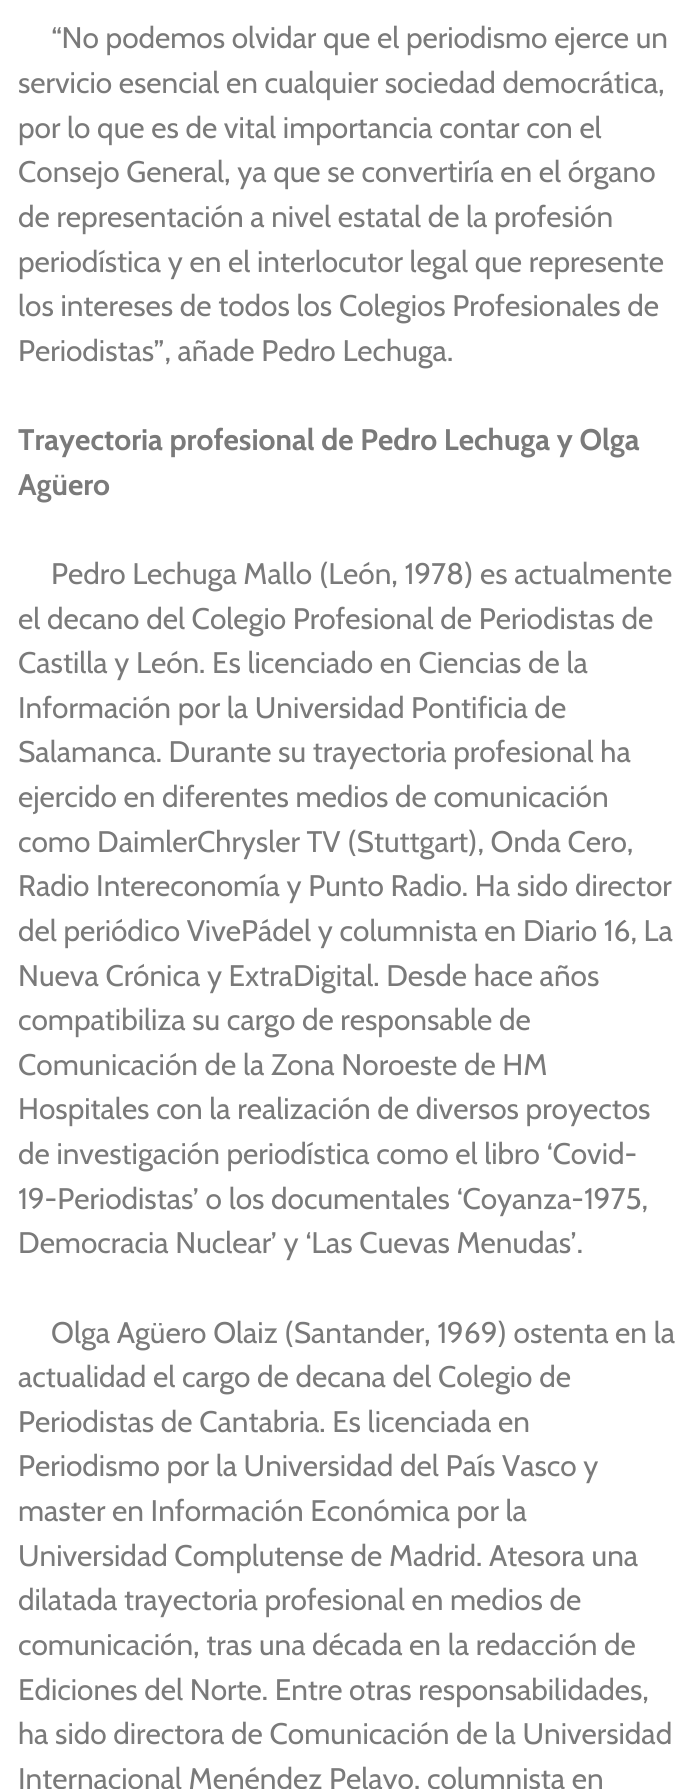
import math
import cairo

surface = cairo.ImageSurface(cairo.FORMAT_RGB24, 692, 1789)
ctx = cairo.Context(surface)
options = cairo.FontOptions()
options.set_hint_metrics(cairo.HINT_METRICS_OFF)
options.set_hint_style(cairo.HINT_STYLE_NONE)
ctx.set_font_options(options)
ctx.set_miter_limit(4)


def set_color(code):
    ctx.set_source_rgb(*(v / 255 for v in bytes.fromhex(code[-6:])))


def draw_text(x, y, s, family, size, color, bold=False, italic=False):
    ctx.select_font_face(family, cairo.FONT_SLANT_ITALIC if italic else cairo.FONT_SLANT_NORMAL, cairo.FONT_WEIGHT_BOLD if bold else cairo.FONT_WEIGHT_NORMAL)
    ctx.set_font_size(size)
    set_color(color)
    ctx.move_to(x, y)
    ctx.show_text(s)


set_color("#ffffff")
ctx.paint()
draw_text(51, 48, "“No podemos olvidar que el periodismo ejerce un", "Cabin", 29.75, "#7a7a7a")
draw_text(18, 93, "servicio esencial en cualquier sociedad democrática,", "Cabin", 29.75, "#7a7a7a")
draw_text(18, 138, "por lo que es de vital importancia contar con el", "Cabin", 29.75, "#7a7a7a")
draw_text(18, 182, "Consejo General, ya que se convertiría en el órgano", "Cabin", 29.75, "#7a7a7a")
draw_text(18, 227, "de representación a nivel estatal de la profesión", "Cabin", 29.75, "#7a7a7a")
draw_text(18, 272, "periodística y en el interlocutor legal que represente", "Cabin", 29.75, "#7a7a7a")
draw_text(18, 316, "los intereses de todos los Colegios Profesionales de", "Cabin", 29.75, "#7a7a7a")
draw_text(18, 361, "Periodistas”, añade Pedro Lechuga.", "Cabin", 29.75, "#7a7a7a")
draw_text(18, 450, "Trayectoria profesional de Pedro Lechuga y Olga", "Cabin", 29.75, "#7a7a7a", bold=True)
draw_text(18, 495, "Agüero", "Cabin", 29.75, "#7a7a7a", bold=True)
draw_text(51, 584, "Pedro Lechuga Mallo (León, 1978) es actualmente", "Cabin", 29.75, "#7a7a7a")
draw_text(18, 629, "el decano del Colegio Profesional de Periodistas de", "Cabin", 29.75, "#7a7a7a")
draw_text(18, 673, "Castilla y León. Es licenciado en Ciencias de la", "Cabin", 29.75, "#7a7a7a")
draw_text(18, 718, "Información por la Universidad Pontificia de", "Cabin", 29.75, "#7a7a7a")
draw_text(18, 762, "Salamanca. Durante su trayectoria profesional ha", "Cabin", 29.75, "#7a7a7a")
draw_text(18, 807, "ejercido en diferentes medios de comunicación", "Cabin", 29.75, "#7a7a7a")
draw_text(18, 852, "como DaimlerChrysler TV (Stuttgart), Onda Cero,", "Cabin", 29.75, "#7a7a7a")
draw_text(18, 896, "Radio Intereconomía y Punto Radio. Ha sido director", "Cabin", 29.75, "#7a7a7a")
draw_text(18, 941, "del periódico VivePádel y columnista en Diario 16, La", "Cabin", 29.75, "#7a7a7a")
draw_text(18, 986, "Nueva Crónica y ExtraDigital. Desde hace años", "Cabin", 29.75, "#7a7a7a")
draw_text(18, 1030, "compatibiliza su cargo de responsable de", "Cabin", 29.75, "#7a7a7a")
draw_text(18, 1075, "Comunicación de la Zona Noroeste de HM", "Cabin", 29.75, "#7a7a7a")
draw_text(18, 1119, "Hospitales con la realización de diversos proyectos", "Cabin", 29.75, "#7a7a7a")
draw_text(18, 1164, "de investigación periodística como el libro ‘Covid-", "Cabin", 29.75, "#7a7a7a")
draw_text(18, 1209, "19-Periodistas’ o los documentales ‘Coyanza-1975,", "Cabin", 29.75, "#7a7a7a")
draw_text(18, 1253, "Democracia Nuclear’ y ‘Las Cuevas Menudas’.", "Cabin", 29.75, "#7a7a7a")
draw_text(51, 1343, "Olga Agüero Olaiz (Santander, 1969) ostenta en la", "Cabin", 29.75, "#7a7a7a")
draw_text(18, 1387, "actualidad el cargo de decana del Colegio de", "Cabin", 29.75, "#7a7a7a")
draw_text(18, 1432, "Periodistas de Cantabria. Es licenciada en", "Cabin", 29.75, "#7a7a7a")
draw_text(18, 1476, "Periodismo por la Universidad del País Vasco y", "Cabin", 29.75, "#7a7a7a")
draw_text(18, 1521, "master en Información Económica por la", "Cabin", 29.75, "#7a7a7a")
draw_text(18, 1566, "Universidad Complutense de Madrid. Atesora una", "Cabin", 29.75, "#7a7a7a")
draw_text(18, 1610, "dilatada trayectoria profesional en medios de", "Cabin", 29.75, "#7a7a7a")
draw_text(18, 1655, "comunicación, tras una década en la redacción de", "Cabin", 29.75, "#7a7a7a")
draw_text(18, 1700, "Ediciones del Norte. Entre otras responsabilidades,", "Cabin", 29.75, "#7a7a7a")
draw_text(18, 1744, "ha sido directora de Comunicación de la Universidad", "Cabin", 29.75, "#7a7a7a")
draw_text(18, 1789, "Internacional Menéndez Pelayo, columnista en", "Cabin", 29.75, "#7a7a7a")
surface.write_to_png("output.png")
